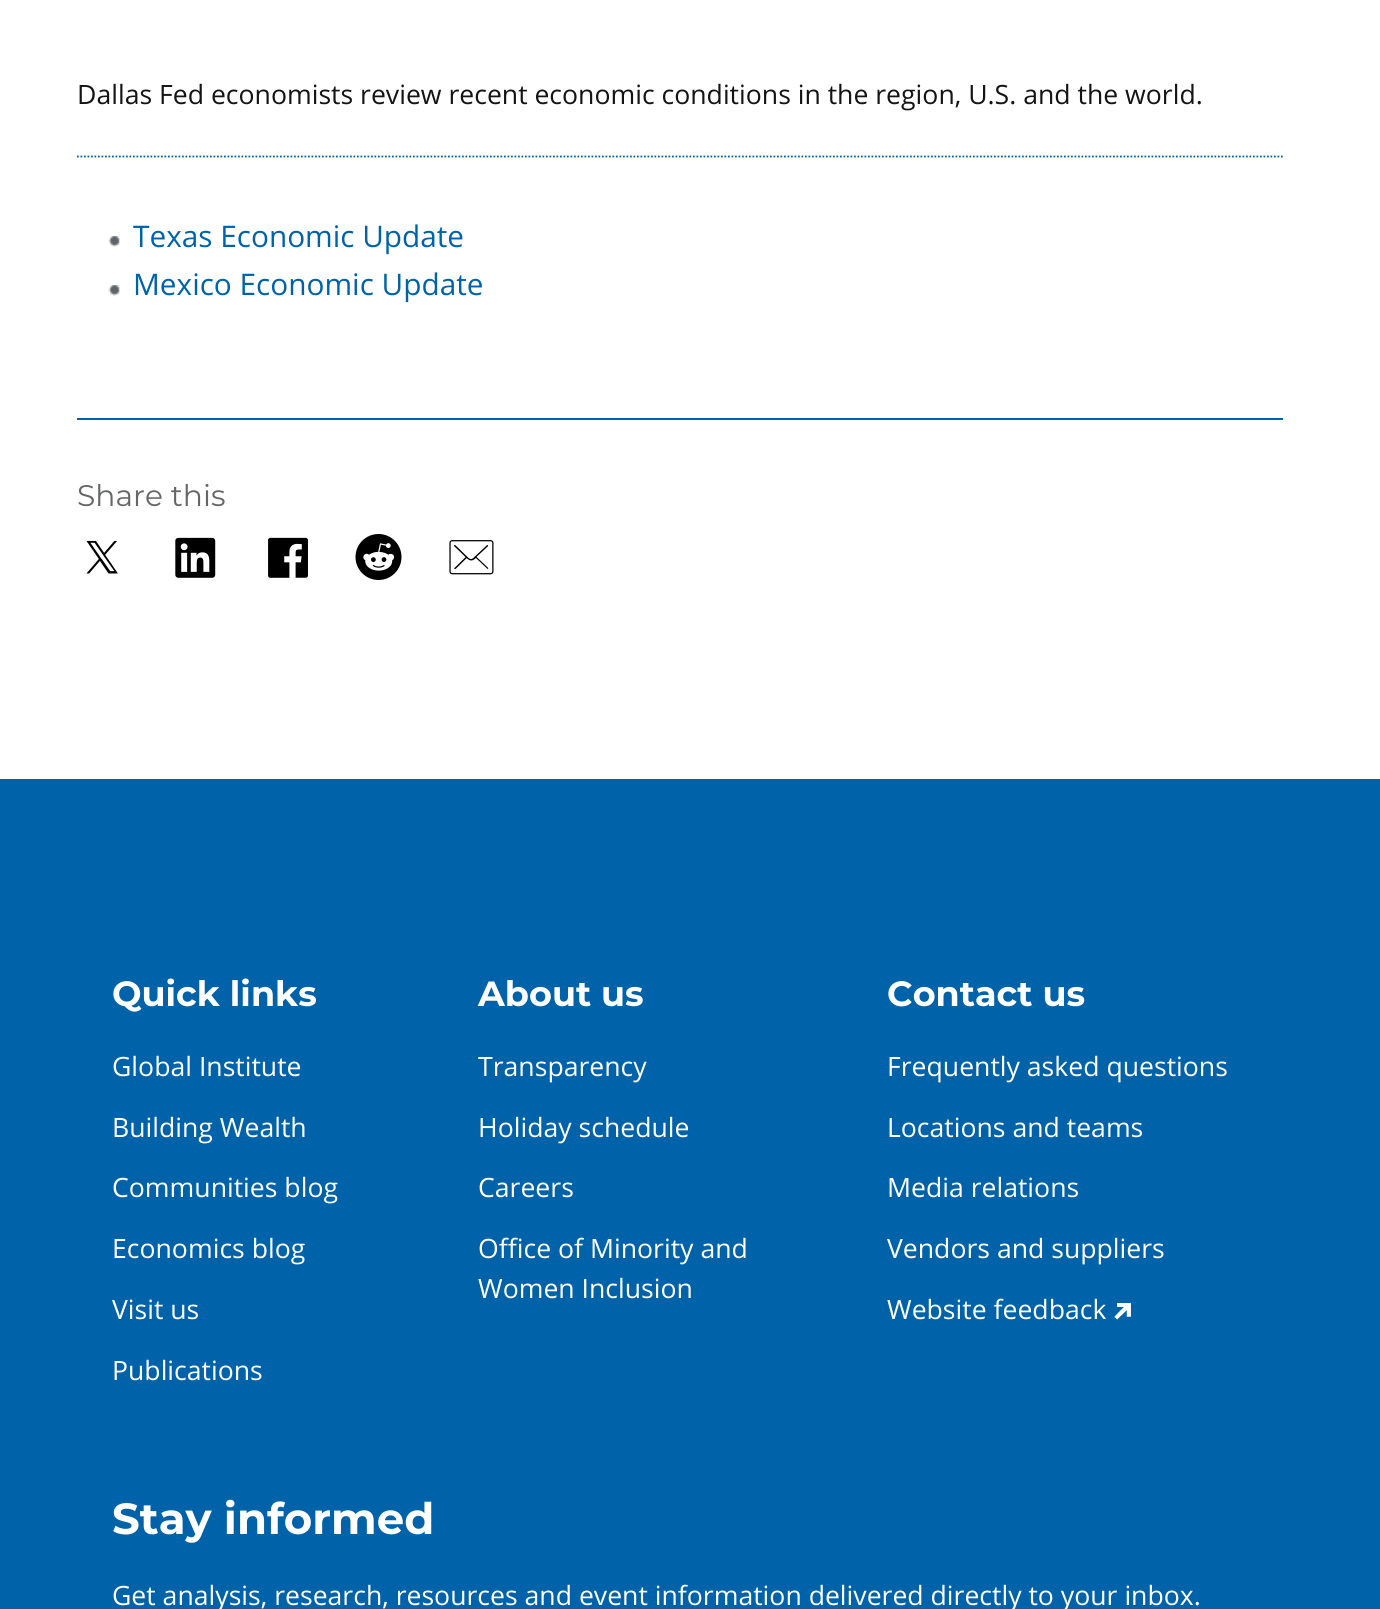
import math
import cairo

surface = cairo.ImageSurface(cairo.FORMAT_RGB24, 1380, 1609)
ctx = cairo.Context(surface)
options = cairo.FontOptions()
options.set_hint_metrics(cairo.HINT_METRICS_OFF)
options.set_hint_style(cairo.HINT_STYLE_NONE)
ctx.set_font_options(options)
ctx.set_miter_limit(4)


def set_color(code):
    ctx.set_source_rgb(*(v / 255 for v in bytes.fromhex(code[-6:])))


def draw_text(x, y, s, family, size, color, bold=False, italic=False):
    ctx.select_font_face(family, cairo.FONT_SLANT_ITALIC if italic else cairo.FONT_SLANT_NORMAL, cairo.FONT_WEIGHT_BOLD if bold else cairo.FONT_WEIGHT_NORMAL)
    ctx.set_font_size(size)
    set_color(color)
    ctx.move_to(x, y)
    ctx.show_text(s)


def fill_rect(x, y, w, h, color):
    set_color(color)
    ctx.rectangle(x, y, w, h)
    ctx.fill()


def draw_image(path, x, y, w, h):
    ctx.save()
    ctx.set_source_surface(cairo.ImageSurface.create_from_png(path), x, y)
    ctx.rectangle(x, y, w, h)
    ctx.fill()
    ctx.restore()


set_color("#ffffff")
ctx.paint()
ctx.new_path()
ctx.move_to(77, 156.5)
ctx.line_to(1283, 156.5)
set_color("#0063a9")
ctx.set_line_width(1.8)
ctx.set_dash([1.75, 1.75])
ctx.stroke()
draw_text(77, 104, "Dallas Fed economists review recent economic conditions in the region, U.S. and the world.", "Open Sans", 26.6, "#141415")
draw_image("assets/img1.png", 108, 236, 12, 11)
draw_text(133, 247, "Texas Economic Update", "Open Sans", 29.75, "#0063a9")
draw_image("assets/img1.png", 108, 285, 12, 11)
draw_text(133, 295, "Mexico Economic Update", "Open Sans", 29.75, "#0063a9")
fill_rect(77, 418, 1206, 2, "#0063a9")
draw_text(77, 506, "Share this", "Montserrat", 29.75, "#656668")
draw_image("assets/img2.png", 86, 540, 32, 34)
draw_image("assets/img3.png", 175, 537, 41, 41)
draw_image("assets/img4.png", 268, 537, 40, 41)
draw_image("assets/img5.png", 355, 534, 47, 46)
draw_image("assets/img6.png", 449, 540, 45, 35)
fill_rect(0, 779, 1380, 830, "#0063a9")
draw_text(112, 1006, "Quick links", "Montserrat", 35, "#ffffff", bold=True)
draw_text(112, 1076, "Global Institute", "Open Sans", 26.6, "#ffffff")
draw_text(112, 1137, "Building Wealth", "Open Sans", 26.6, "#ffffff")
draw_text(112, 1197, "Communities blog", "Open Sans", 26.6, "#ffffff")
draw_text(112, 1258, "Economics blog", "Open Sans", 26.6, "#ffffff")
draw_text(112, 1319, "Visit us", "Open Sans", 26.6, "#ffffff")
draw_text(112, 1380, "Publications", "Open Sans", 26.6, "#ffffff")
draw_text(478, 1006, "About us", "Montserrat", 35, "#ffffff", bold=True)
draw_text(478, 1076, "Transparency", "Open Sans", 26.6, "#ffffff")
draw_text(478, 1137, "Holiday schedule", "Open Sans", 26.6, "#ffffff")
draw_text(478, 1197, "Careers", "Open Sans", 26.6, "#ffffff")
draw_text(478, 1258, "Office of Minority and", "Open Sans", 26.6, "#ffffff")
draw_text(478, 1298, "Women Inclusion", "Open Sans", 26.6, "#ffffff")
draw_text(887, 1006, "Contact us", "Montserrat", 35, "#ffffff", bold=True)
draw_text(887, 1076, "Frequently asked questions", "Open Sans", 26.6, "#ffffff")
draw_text(887, 1137, "Locations and teams", "Open Sans", 26.6, "#ffffff")
draw_text(887, 1197, "Media relations", "Open Sans", 26.6, "#ffffff")
draw_text(887, 1258, "Vendors and suppliers", "Open Sans", 26.6, "#ffffff")
draw_text(887, 1319, "Website feedback", "Open Sans", 26.6, "#ffffff")
draw_image("assets/img7.png", 1114, 1303, 17, 17)
draw_text(112, 1534, "Stay informed", "Montserrat", 43.5, "#ffffff", bold=True)
draw_text(112, 1605, "Get analysis, research, resources and event information delivered directly to your inbox.", "Open Sans", 26.6, "#ffffff")
surface.write_to_png("output.png")
